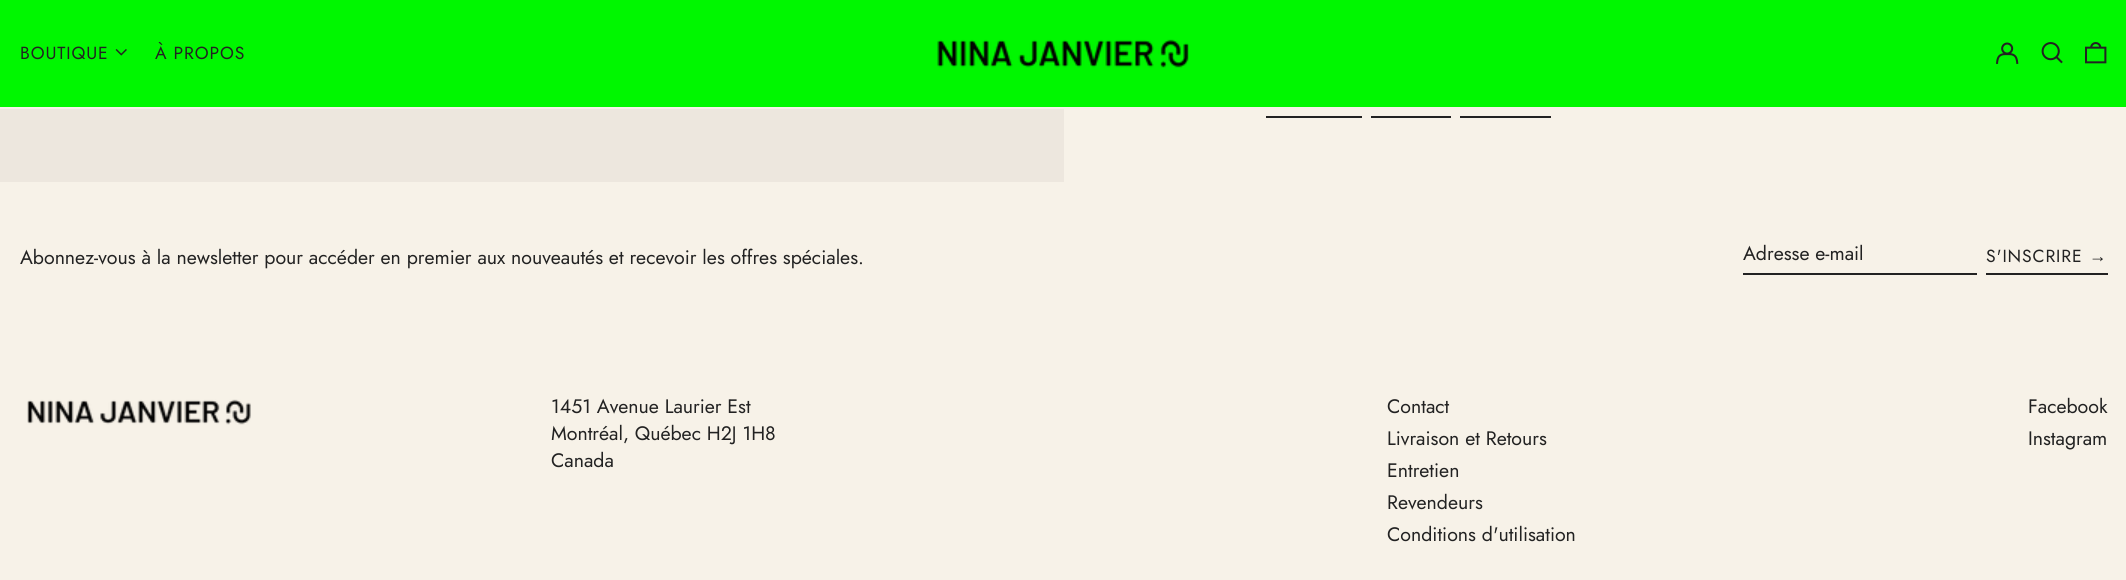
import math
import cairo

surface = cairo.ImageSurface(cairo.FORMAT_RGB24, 2126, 580)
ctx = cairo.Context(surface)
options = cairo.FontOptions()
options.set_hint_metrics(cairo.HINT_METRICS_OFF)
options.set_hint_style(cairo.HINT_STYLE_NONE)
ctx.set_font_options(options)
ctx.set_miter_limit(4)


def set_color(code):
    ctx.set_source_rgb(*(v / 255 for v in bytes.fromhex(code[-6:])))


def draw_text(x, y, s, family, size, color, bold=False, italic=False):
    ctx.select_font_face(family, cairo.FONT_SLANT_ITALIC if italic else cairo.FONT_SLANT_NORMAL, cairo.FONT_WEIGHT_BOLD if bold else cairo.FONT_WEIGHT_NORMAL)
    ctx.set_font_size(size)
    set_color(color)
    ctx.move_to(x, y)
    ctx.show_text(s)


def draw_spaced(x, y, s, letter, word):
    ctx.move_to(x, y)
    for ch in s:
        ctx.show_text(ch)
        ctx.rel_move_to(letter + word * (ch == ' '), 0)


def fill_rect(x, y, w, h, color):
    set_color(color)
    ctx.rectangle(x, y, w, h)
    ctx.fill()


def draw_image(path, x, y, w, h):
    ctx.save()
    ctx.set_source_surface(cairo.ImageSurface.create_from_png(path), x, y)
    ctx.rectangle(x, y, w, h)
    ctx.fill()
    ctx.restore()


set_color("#f7f2e8")
ctx.paint()
fill_rect(0, 0, 2126, 107, "#00f700")
ctx.select_font_face("Jost")
ctx.set_font_size(17.5)
set_color("#222222")
draw_spaced(20, 59, "BOUTIQUE", 0.9, 0)
draw_image("assets/img1.png", 115, 49, 12, 7)
draw_spaced(155, 59, "À PROPOS", 0.9, 0)
draw_image("assets/img2.png", 937, 39, 252, 29)
draw_image("assets/img3.png", 1996, 42, 23, 22)
draw_image("assets/img4.png", 2041, 42, 22, 22)
draw_image("assets/img5.png", 2085, 42, 22, 22)
fill_rect(0, 109, 1064, 73, "#ede7de")
fill_rect(1266, 116, 96, 2, "#222222")
fill_rect(1371, 116, 80, 2, "#222222")
fill_rect(1460, 116, 91, 2, "#222222")
draw_text(20, 264, "Abonnez-vous à la newsletter pour accéder en premier aux nouveautés et recevoir les offres spéciales.", "Jost", 19.5, "#222222")
fill_rect(1743, 273, 234, 2, "#222222")
draw_text(1743, 260, "Adresse e-mail", "Jost", 19.5, "#222222")
fill_rect(1986, 273, 122, 2, "#222222")
ctx.set_font_size(17.5)
draw_spaced(1986, 262, "S'INSCRIRE", 0.9, 0)
ctx.select_font_face("Liberation Sans")
draw_spaced(2089, 262, "→", 0.9, 0)
draw_image("assets/img6.png", 27, 399, 224, 26)
draw_text(551, 413, "1451 Avenue Laurier Est", "Jost", 19.5, "#222222")
draw_text(551, 440, "Montréal, Québec H2J 1H8", "Jost", 19.5, "#222222")
draw_text(551, 467, "Canada", "Jost", 19.5, "#222222")
draw_text(1387, 413, "Contact", "Jost", 19.5, "#222222")
draw_text(1387, 445, "Livraison et Retours", "Jost", 19.5, "#222222")
draw_text(1387, 477, "Entretien", "Jost", 19.5, "#222222")
draw_text(1387, 509, "Revendeurs", "Jost", 19.5, "#222222")
draw_text(1387, 541, "Conditions d'utilisation", "Jost", 19.5, "#222222")
draw_text(2028, 413, "Facebook", "Jost", 19.5, "#222222")
draw_text(2028, 445, "Instagram", "Jost", 19.5, "#222222")
surface.write_to_png("output.png")
